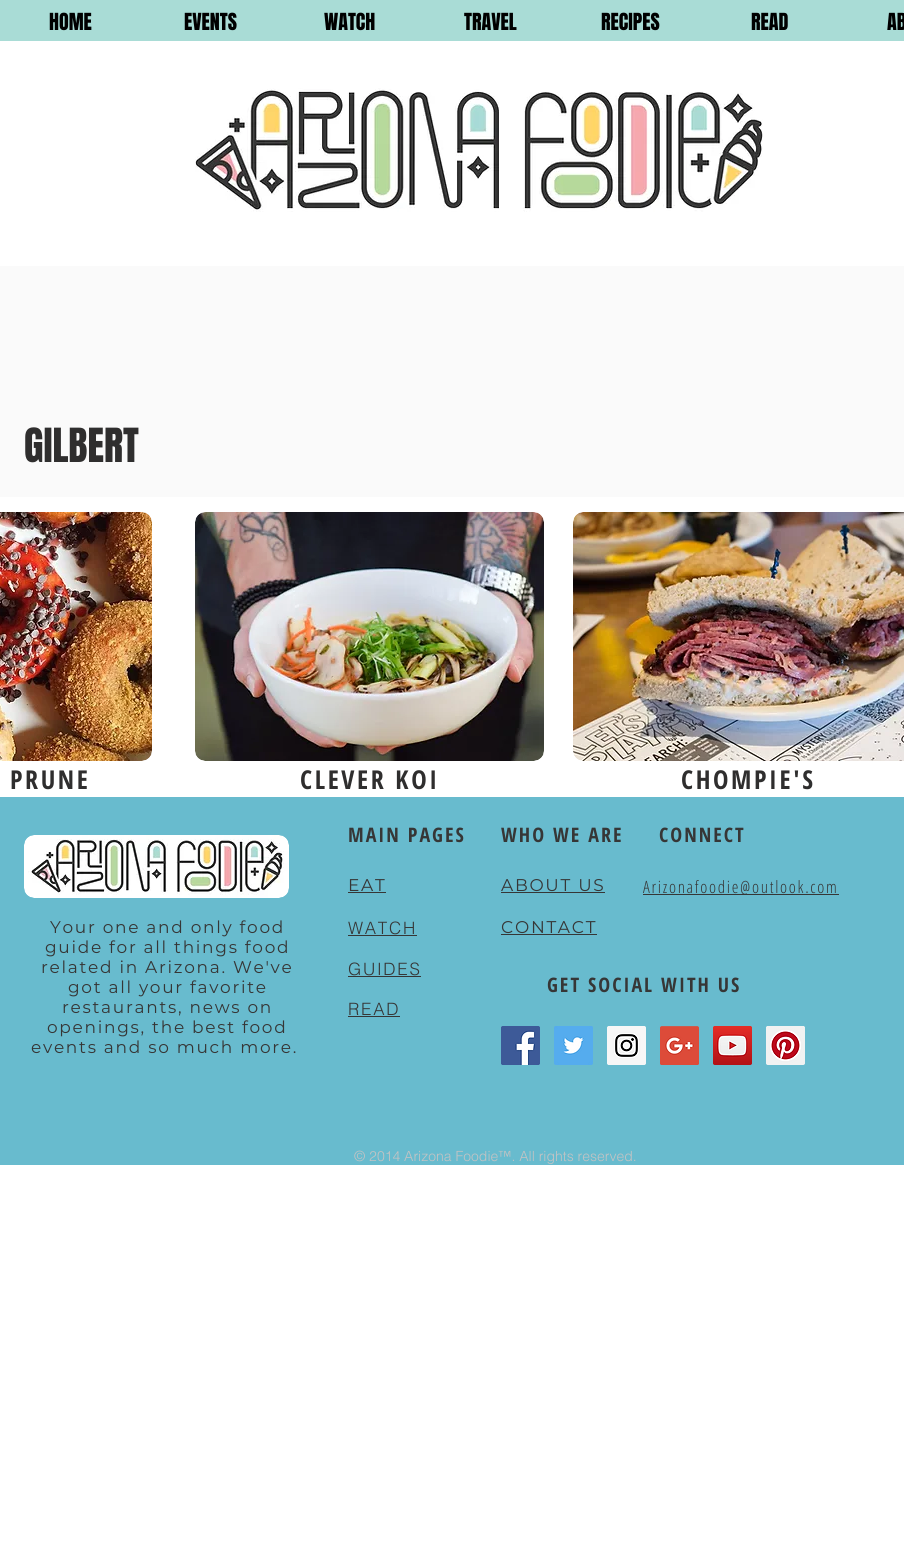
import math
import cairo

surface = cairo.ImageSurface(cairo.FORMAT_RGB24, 904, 1554)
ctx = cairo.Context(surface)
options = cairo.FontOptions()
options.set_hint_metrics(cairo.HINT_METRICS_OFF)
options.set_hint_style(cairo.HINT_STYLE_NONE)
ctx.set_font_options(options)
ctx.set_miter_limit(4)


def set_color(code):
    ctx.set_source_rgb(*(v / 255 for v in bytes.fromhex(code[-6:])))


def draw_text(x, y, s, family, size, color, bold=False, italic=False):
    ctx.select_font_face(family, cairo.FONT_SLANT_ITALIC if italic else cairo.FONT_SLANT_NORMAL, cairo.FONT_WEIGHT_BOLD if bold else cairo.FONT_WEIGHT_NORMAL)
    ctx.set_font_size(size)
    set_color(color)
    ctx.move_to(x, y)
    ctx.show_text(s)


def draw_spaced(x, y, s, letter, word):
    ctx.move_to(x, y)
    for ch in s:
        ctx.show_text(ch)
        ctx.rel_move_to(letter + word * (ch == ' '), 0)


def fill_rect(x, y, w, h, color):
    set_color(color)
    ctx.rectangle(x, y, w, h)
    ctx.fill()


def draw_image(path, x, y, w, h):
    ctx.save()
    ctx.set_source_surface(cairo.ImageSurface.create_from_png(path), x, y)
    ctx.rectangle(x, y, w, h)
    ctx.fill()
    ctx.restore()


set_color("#ffffff")
ctx.paint()
fill_rect(0, 0, 904, 41, "#a9dcd6")
draw_text(49, 30, "HOME", "Anton", 20, "#000000")
draw_text(184, 30, "EVENTS", "Anton", 20, "#000000")
draw_text(324, 30, "WATCH", "Anton", 20, "#000000")
draw_text(464, 30, "TRAVEL", "Anton", 20, "#000000")
draw_text(601, 30, "RECIPES", "Anton", 20, "#000000")
draw_text(751, 30, "READ", "Anton", 20, "#000000")
draw_text(887, 30, "AB", "Anton", 20, "#000000")
draw_image("assets/img1.png", 195, 88, 568, 124)
fill_rect(0, 266, 904, 231, "#fafafa")
draw_text(24, 462, "GILBERT", "Anton", 40, "#2f2e2e")
draw_image("assets/img2.png", 0, 512, 152, 249)
draw_image("assets/img3.png", 195, 512, 349, 249)
draw_image("assets/img4.png", 573, 512, 331, 249)
ctx.select_font_face("Open Sans Condensed", cairo.FONT_SLANT_NORMAL, cairo.FONT_WEIGHT_BOLD)
ctx.set_font_size(26)
draw_spaced(10, 789, "PRUNE", 2.6, 0)
draw_spaced(300, 789, "CLEVER KOI", 2.6, 0)
draw_spaced(681, 789, "CHOMPIE'S", 2.6, 0)
fill_rect(0, 797, 904, 368, "#68bbce")
draw_image("assets/img5.png", 24, 835, 265, 63)
ctx.set_font_size(20)
set_color("#363636")
draw_spaced(348, 842, "MAIN PAGES", 2, 0)
draw_spaced(501, 842, "WHO WE ARE", 2, 0)
draw_spaced(659, 842, "CONNECT", 2, 0)
ctx.select_font_face("Montserrat")
ctx.set_font_size(17)
draw_spaced(348, 891, "EAT", 1.7, 0)
fill_rect(348, 892, 38, 1, "#363636")
draw_spaced(501, 891, "ABOUT US", 1.7, 0)
fill_rect(501, 892, 104, 1, "#363636")
fill_rect(643, 894, 196, 1, "#363636")
ctx.select_font_face("Open Sans Condensed Light")
draw_spaced(643, 893, "Arizonafoodie@outlook.com", 1.7, 0)
ctx.select_font_face("Montserrat")
draw_spaced(50, 933, "Your one and only food", 1.7, 0)
draw_spaced(45, 953, "guide for all things food", 1.7, 0)
draw_spaced(41, 973, "related in Arizona. We've", 1.7, 0)
draw_spaced(68, 993, "got all your favorite", 1.7, 0)
draw_spaced(62, 1013, "restaurants, news on", 1.7, 0)
draw_spaced(47, 1033, "openings, the best food", 1.7, 0)
draw_spaced(31, 1053, "events and so much more.", 1.7, 0)
ctx.select_font_face("helvetica Light")
draw_spaced(348, 934, "WATCH", 1.7, 0)
fill_rect(348, 935, 69, 1, "#363636")
ctx.select_font_face("Montserrat")
draw_spaced(501, 933, "CONTACT", 1.7, 0)
fill_rect(501, 934, 96, 1, "#363636")
ctx.select_font_face("helvetica Light")
draw_spaced(348, 975, "GUIDES", 1.7, 0)
fill_rect(348, 976, 73, 1, "#363636")
ctx.select_font_face("Open Sans Condensed", cairo.FONT_SLANT_NORMAL, cairo.FONT_WEIGHT_BOLD)
ctx.set_font_size(20)
draw_spaced(547, 992, "GET SOCIAL WITH US", 2, 0)
ctx.select_font_face("helvetica Light")
ctx.set_font_size(17)
draw_spaced(348, 1015, "READ", 1.7, 0)
fill_rect(348, 1016, 52, 1, "#363636")
draw_image("assets/img6.png", 501, 1026, 39, 39)
draw_image("assets/img7.png", 554, 1026, 39, 39)
draw_image("assets/img8.png", 607, 1026, 39, 39)
draw_image("assets/img9.png", 660, 1026, 39, 39)
draw_image("assets/img10.png", 713, 1026, 39, 39)
draw_image("assets/img11.png", 766, 1026, 39, 39)
draw_text(354, 1161, "© 2014 Arizona Foodie™. All rights reserved.", "helvetica Light", 14, "#c5c3c3")
surface.write_to_png("output.png")
